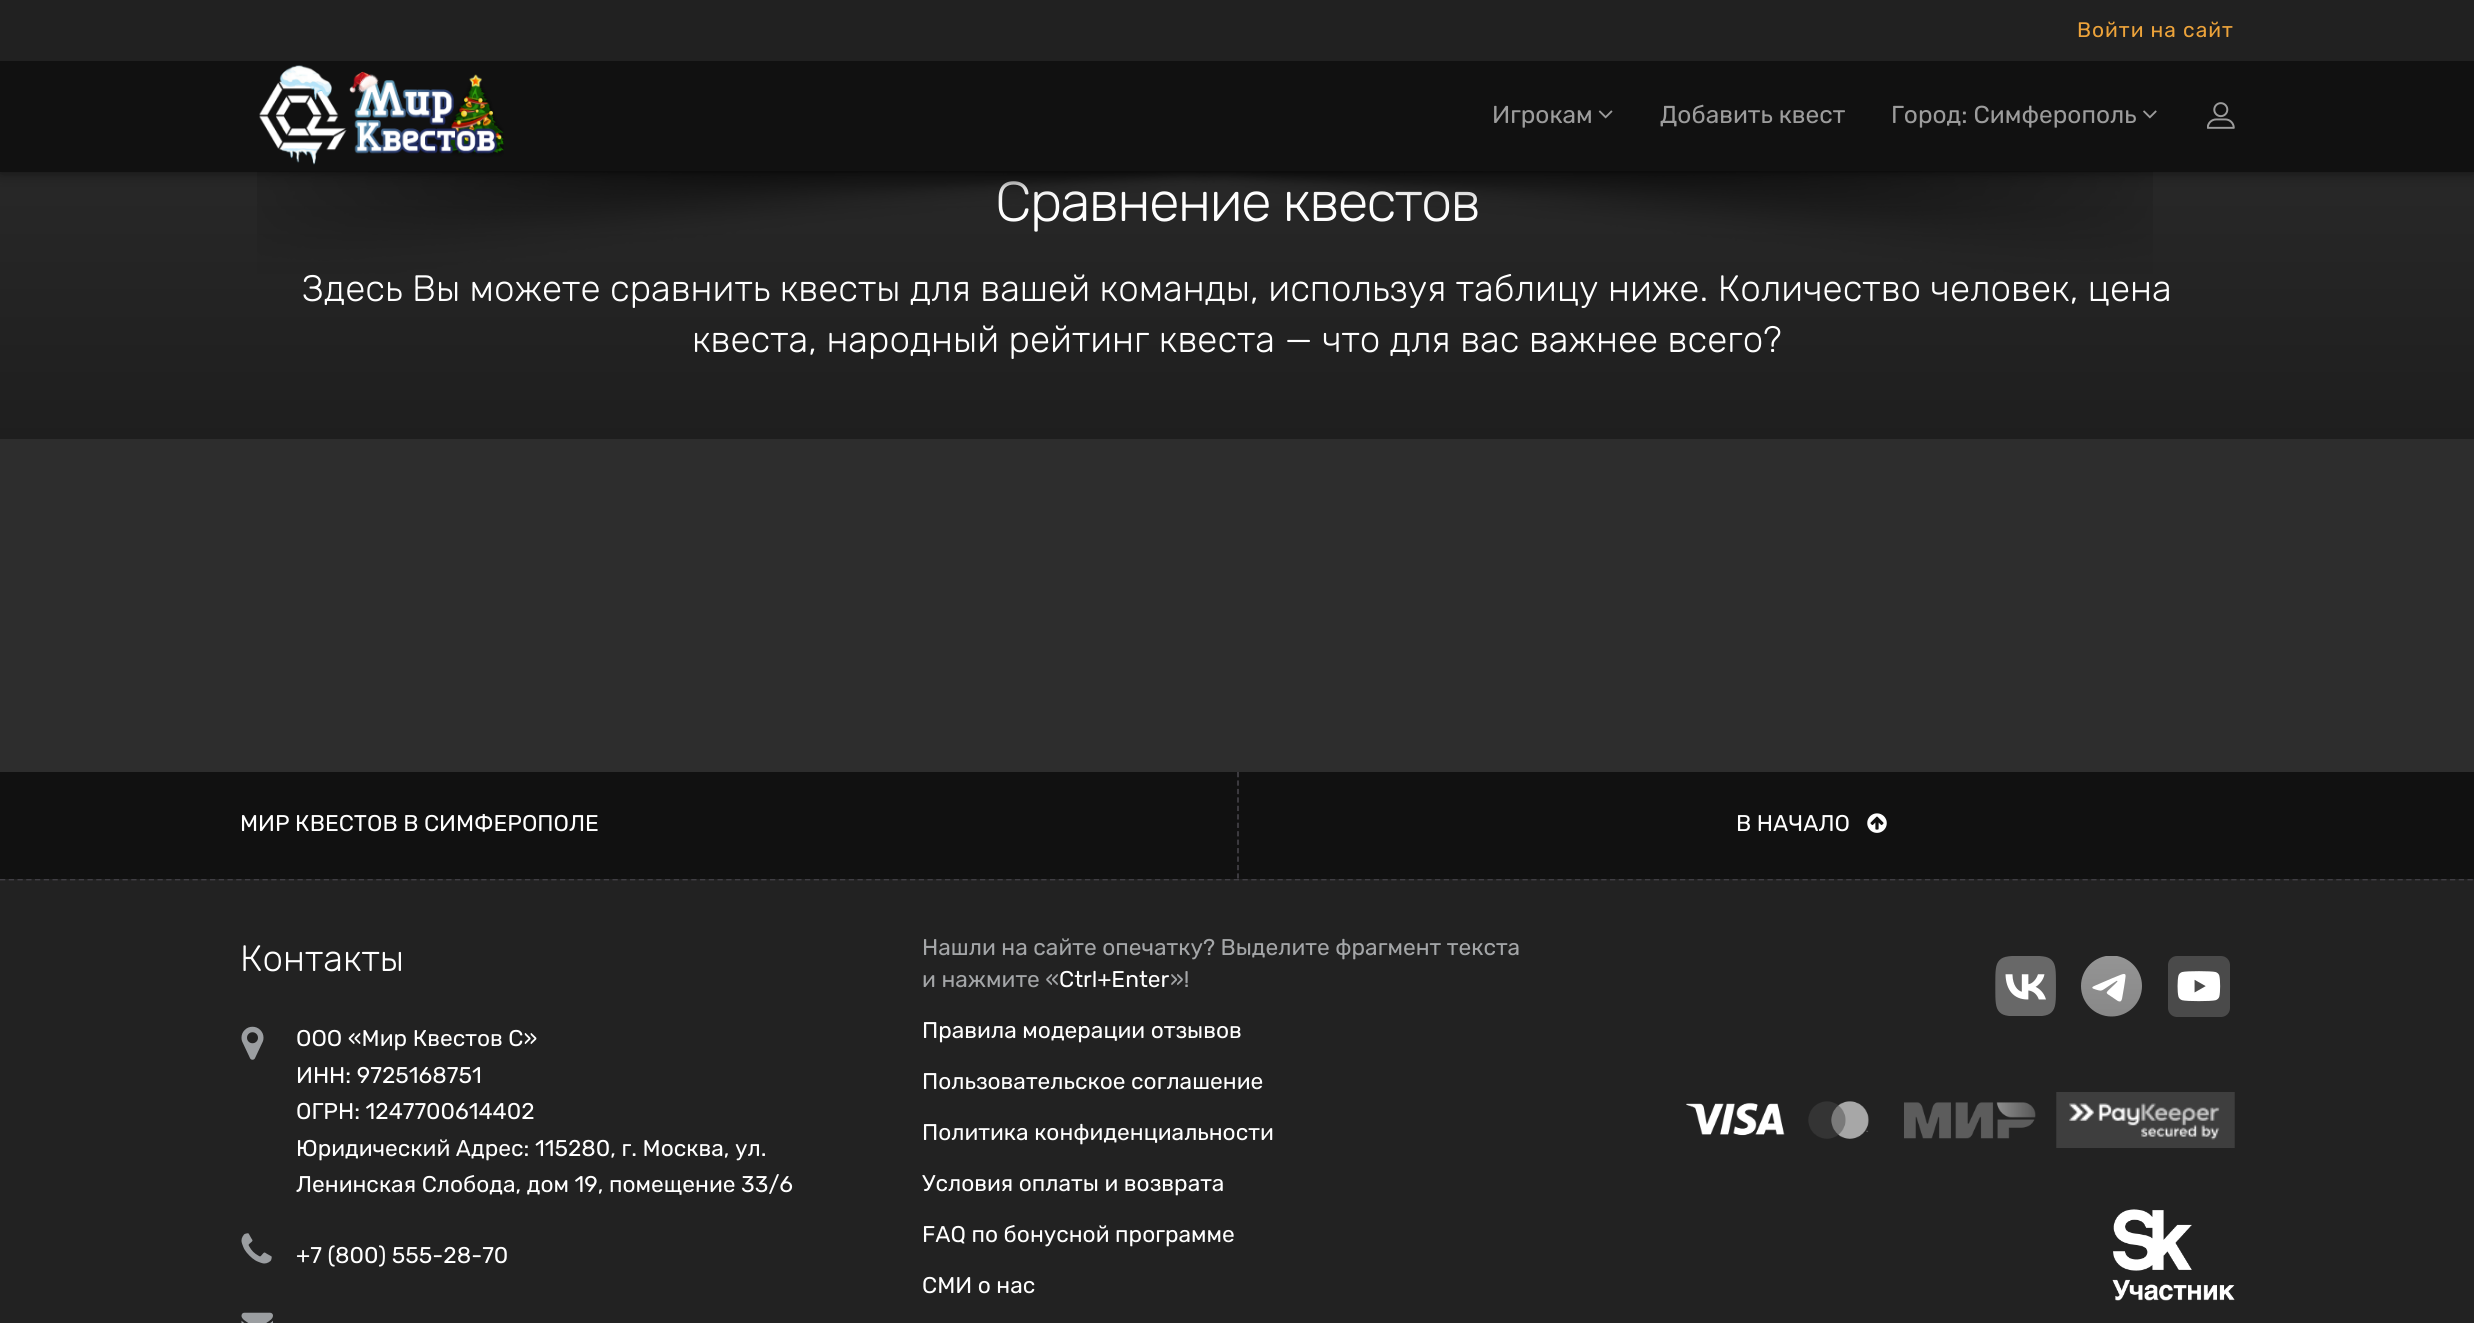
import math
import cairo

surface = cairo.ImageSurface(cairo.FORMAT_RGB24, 2474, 1323)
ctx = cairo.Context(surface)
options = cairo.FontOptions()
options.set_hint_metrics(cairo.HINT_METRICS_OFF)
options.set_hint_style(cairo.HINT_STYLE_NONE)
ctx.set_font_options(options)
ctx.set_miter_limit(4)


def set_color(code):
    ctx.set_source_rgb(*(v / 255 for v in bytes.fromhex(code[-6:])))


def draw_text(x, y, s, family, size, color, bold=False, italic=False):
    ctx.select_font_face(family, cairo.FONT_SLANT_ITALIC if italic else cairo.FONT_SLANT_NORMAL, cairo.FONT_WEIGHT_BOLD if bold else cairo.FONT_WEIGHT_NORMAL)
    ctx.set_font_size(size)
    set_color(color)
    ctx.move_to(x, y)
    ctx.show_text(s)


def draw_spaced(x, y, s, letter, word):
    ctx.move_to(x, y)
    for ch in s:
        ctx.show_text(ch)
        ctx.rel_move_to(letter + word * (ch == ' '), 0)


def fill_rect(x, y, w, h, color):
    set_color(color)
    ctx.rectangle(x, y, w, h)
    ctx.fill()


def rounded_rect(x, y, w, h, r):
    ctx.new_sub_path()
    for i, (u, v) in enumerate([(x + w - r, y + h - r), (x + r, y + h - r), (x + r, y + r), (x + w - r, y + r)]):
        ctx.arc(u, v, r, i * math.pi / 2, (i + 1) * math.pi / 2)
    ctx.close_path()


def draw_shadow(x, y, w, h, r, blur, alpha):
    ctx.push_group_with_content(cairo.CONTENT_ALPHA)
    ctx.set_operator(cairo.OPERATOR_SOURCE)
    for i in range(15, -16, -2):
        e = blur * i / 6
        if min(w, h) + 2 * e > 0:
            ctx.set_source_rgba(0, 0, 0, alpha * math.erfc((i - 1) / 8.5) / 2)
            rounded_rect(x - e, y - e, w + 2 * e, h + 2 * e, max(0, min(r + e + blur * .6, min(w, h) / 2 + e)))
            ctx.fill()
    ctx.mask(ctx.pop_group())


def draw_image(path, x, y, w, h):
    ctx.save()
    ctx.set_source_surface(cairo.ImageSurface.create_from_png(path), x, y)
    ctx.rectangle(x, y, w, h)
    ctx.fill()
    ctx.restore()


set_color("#2d2d2d")
ctx.paint()
gradient = cairo.LinearGradient(1237, 79, 1237, 439)
gradient.add_color_stop_rgba(0, 0.169, 0.169, 0.169, 1)
gradient.add_color_stop_rgba(1, 0.118, 0.118, 0.118, 1)
ctx.set_source(gradient)
ctx.rectangle(0, 172, 2474, 267)
ctx.fill()
set_color("#111111")
draw_shadow(0, 0, 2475, 172, 0, 7, 1)
fill_rect(0, 0, 2474, 61, "#212121")
ctx.select_font_face("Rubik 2 Light")
ctx.set_font_size(21)
set_color("#eda33a")
draw_spaced(2077, 37, "Войти на сайт", 1, 0)
fill_rect(0, 61, 2474, 111, "#111111")
draw_image("assets/img1.png", 259, 65, 245, 100)
draw_text(1492, 123, "Игрокам", "Rubik 2 Light", 24.5, "#9c9c9c")
draw_image("assets/img2.png", 1598, 110, 15, 9)
draw_text(1660, 123, "Добавить квест", "Rubik 2 Light", 24.5, "#9c9c9c")
draw_text(1891, 123, "Город: Симферополь", "Rubik 2 Light", 24.5, "#9c9c9c")
draw_image("assets/img3.png", 2143, 110, 14, 9)
draw_image("assets/img4.png", 2207, 102, 28, 27)
ctx.select_font_face("Rubik Light")
ctx.set_font_size(56)
set_color("#ffffff")
draw_spaced(995, 221, "Сравнение квестов", -1.75, 0)
draw_text(302, 301, "Здесь Вы можете сравнить квесты для вашей команды, используя таблицу ниже. Количество человек, цена", "Rubik Light", 36.75, "#ffffff")
draw_image("assets/img5.png", 257, 171, 1896, 103)
draw_text(692, 352, "квеста, народный рейтинг квеста — что для вас важнее всего?", "Rubik Light", 36.75, "#ffffff")
fill_rect(0, 879, 2474, 444, "#222222")
ctx.new_path()
ctx.move_to(0, 879.5)
ctx.line_to(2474.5, 879.5)
set_color("#403e44")
ctx.set_line_width(1.8)
ctx.set_dash([5.25, 3.5])
ctx.stroke()
fill_rect(0, 772, 2474, 107, "#111111")
draw_text(240, 831, "МИР КВЕСТОВ В СИМФЕРОПОЛЕ", "Rubik 2 Light", 22.75, "#ffffff")
ctx.new_path()
ctx.move_to(1238, 772)
ctx.line_to(1238, 878.5)
set_color("#403e44")
ctx.set_dash([5.25, 3.2])
ctx.stroke()
draw_text(1736, 831, "В НАЧАЛО", "Rubik 2 Light", 22.75, "#ffffff")
draw_image("assets/img6.png", 1867, 813, 20, 20)
draw_text(240, 971, "Контакты", "Rubik Light", 36.75, "#ffffff")
draw_image("assets/img7.png", 241, 1026, 23, 34)
draw_text(296, 1046, "ООО «Мир Квестов С»", "Rubik 2 Light", 22.75, "#ffffff")
draw_text(296, 1083, "ИНН: 9725168751", "Rubik 2 Light", 22.75, "#ffffff")
draw_text(296, 1119, "ОГРН: 1247700614402", "Rubik 2 Light", 22.75, "#ffffff")
draw_text(296, 1156, "Юридический Адрес: 115280, г. Москва, ул.", "Rubik 2 Light", 22.75, "#ffffff")
draw_text(296, 1192, "Ленинская Слобода, дом 19, помещение 33/6", "Rubik 2 Light", 22.75, "#ffffff")
draw_image("assets/img8.png", 241, 1233, 31, 31)
draw_text(296, 1263, "+7 (800) 555-28-70", "Rubik 2 Light", 22.75, "#ffffff")
draw_image("assets/img9.png", 241, 1312, 32, 11)
draw_text(922, 955, "Нашли на сайте опечатку? Выделите фрагмент текста", "Rubik 2 Light", 22.75, "#a4a6a8")
draw_text(922, 987, "и нажмите «", "Rubik 2 Light", 22.75, "#a4a6a8")
draw_text(1059, 987, "Ctrl+Enter", "Rubik 2 Light", 22.75, "#ffffff")
draw_text(1170, 987, "»!", "Rubik 2 Light", 22.75, "#a4a6a8")
draw_text(922, 1038, "Правила модерации отзывов", "Rubik 2 Light", 22.75, "#ffffff")
draw_text(922, 1089, "Пользовательское соглашение", "Rubik 2 Light", 22.75, "#ffffff")
draw_text(922, 1140, "Политика конфиденциальности", "Rubik 2 Light", 22.75, "#ffffff")
draw_text(922, 1191, "Условия оплаты и возврата", "Rubik 2 Light", 22.75, "#ffffff")
draw_text(922, 1242, "FAQ по бонусной программе", "Rubik 2 Light", 22.75, "#ffffff")
draw_text(922, 1293, "СМИ о нас", "Rubik 2 Light", 22.75, "#ffffff")
draw_image("assets/img10.png", 1995, 956, 61, 60)
draw_image("assets/img11.png", 2081, 956, 61, 61)
draw_image("assets/img12.png", 2168, 956, 62, 61)
draw_image("assets/img13.png", 1686, 1102, 99, 34)
draw_image("assets/img14.png", 1808, 1101, 61, 38)
draw_image("assets/img15.png", 1904, 1102, 132, 37)
draw_image("assets/img16.png", 2056, 1092, 179, 56)
draw_image("assets/img17.png", 2112, 1209, 123, 92)
surface.write_to_png("output.png")
